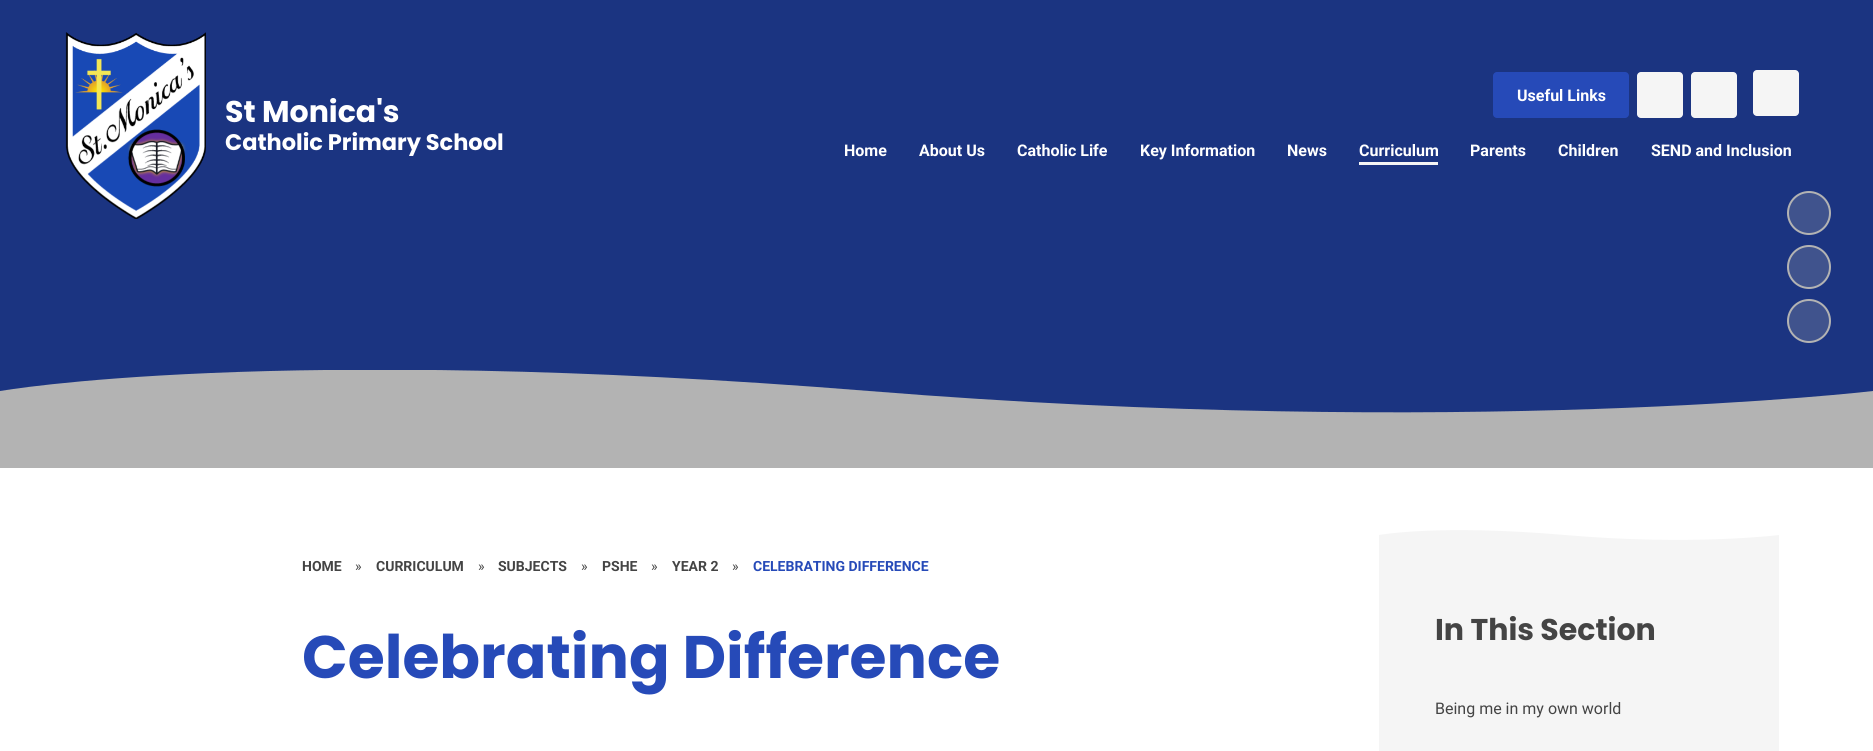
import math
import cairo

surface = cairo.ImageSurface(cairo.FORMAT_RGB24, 1873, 751)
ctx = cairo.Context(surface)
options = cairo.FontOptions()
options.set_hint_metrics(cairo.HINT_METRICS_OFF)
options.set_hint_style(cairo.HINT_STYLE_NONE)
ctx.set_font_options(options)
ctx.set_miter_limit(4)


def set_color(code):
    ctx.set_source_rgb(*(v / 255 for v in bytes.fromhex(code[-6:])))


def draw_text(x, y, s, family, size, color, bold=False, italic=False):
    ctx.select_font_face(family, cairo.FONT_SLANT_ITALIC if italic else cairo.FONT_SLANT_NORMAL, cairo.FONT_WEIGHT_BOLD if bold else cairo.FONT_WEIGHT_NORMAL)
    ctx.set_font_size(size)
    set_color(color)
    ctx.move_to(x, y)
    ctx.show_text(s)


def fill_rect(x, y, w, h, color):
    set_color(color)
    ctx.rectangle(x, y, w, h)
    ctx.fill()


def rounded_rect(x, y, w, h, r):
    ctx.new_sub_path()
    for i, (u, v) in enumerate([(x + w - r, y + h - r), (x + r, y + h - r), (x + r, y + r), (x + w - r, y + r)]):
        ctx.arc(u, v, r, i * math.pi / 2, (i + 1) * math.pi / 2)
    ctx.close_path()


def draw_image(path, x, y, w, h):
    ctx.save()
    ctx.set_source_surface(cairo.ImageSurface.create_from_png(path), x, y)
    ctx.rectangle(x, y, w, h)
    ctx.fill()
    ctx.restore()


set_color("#ffffff")
ctx.paint()
fill_rect(0, 0, 1873, 413, "#1b3481")
set_color("#40538d")
ctx.arc(1809, 213, 21, 0, 2 * math.pi)
ctx.fill_preserve()
set_color("#b3b3b3")
ctx.stroke()
set_color("#40538d")
ctx.arc(1809, 267, 21, 0, 2 * math.pi)
ctx.fill_preserve()
set_color("#b3b3b3")
ctx.stroke()
set_color("#40538d")
ctx.arc(1809, 321, 21, 0, 2 * math.pi)
ctx.fill_preserve()
set_color("#b3b3b3")
ctx.stroke()
ctx.save()
ctx.rectangle(0, 370, 1873, 98)
ctx.clip()
ctx.new_path()
ctx.move_to(0, 470)
ctx.line_to(1873, 470)
ctx.line_to(1873, 391)
ctx.curve_to(1873, 391, 1465, 439, 869, 391)
ctx.curve_to(272, 343, 0, 391, 0, 391)
ctx.close_path()
ctx.fill()
ctx.restore()
draw_image("assets/img1.png", 65, 32, 141, 187)
draw_text(225, 122, "St Monica's", "Poppins", 30, "#ffffff", bold=True)
draw_text(225, 150, "Catholic Primary School", "Poppins", 22.5, "#ffffff", bold=True)
set_color("#264ab8")
rounded_rect(1493, 72, 136, 46, 4)
ctx.fill()
draw_text(1517, 101, "Useful Links", "Roboto", 16, "#ffffff", bold=True)
set_color("#f5f5f5")
rounded_rect(1637, 72, 46, 46, 4)
ctx.fill()
rounded_rect(1691, 72, 46, 46, 4)
ctx.fill()
rounded_rect(1753, 70, 46, 46, 4)
ctx.fill()
draw_text(844, 156, "Home", "Roboto", 16, "#ffffff", bold=True)
draw_text(919, 156, "About Us", "Roboto", 16, "#ffffff", bold=True)
draw_text(1017, 156, "Catholic Life", "Roboto", 16, "#ffffff", bold=True)
draw_text(1140, 156, "Key Information", "Roboto", 16, "#ffffff", bold=True)
draw_text(1287, 156, "News", "Roboto", 16, "#ffffff", bold=True)
draw_text(1359, 156, "Curriculum", "Roboto", 16, "#ffffff", bold=True)
fill_rect(1359, 162, 79, 3, "#f5f5f5")
draw_text(1470, 156, "Parents", "Roboto", 16, "#ffffff", bold=True)
draw_text(1558, 156, "Children", "Roboto", 16, "#ffffff", bold=True)
draw_text(1651, 156, "SEND and Inclusion", "Roboto", 16, "#ffffff", bold=True)
draw_text(302, 571, "HOME", "Roboto", 14, "#444444", bold=True)
draw_text(355, 571, "»", "Roboto", 14, "#444444")
draw_text(376, 571, "CURRICULUM", "Roboto", 14, "#444444", bold=True)
draw_text(478, 571, "»", "Roboto", 14, "#444444")
draw_text(498, 571, "SUBJECTS", "Roboto", 14, "#444444", bold=True)
draw_text(581, 571, "»", "Roboto", 14, "#444444")
draw_text(602, 571, "PSHE", "Roboto", 14, "#444444", bold=True)
draw_text(651, 571, "»", "Roboto", 14, "#444444")
draw_text(672, 571, "YEAR 2", "Roboto", 14, "#444444", bold=True)
draw_text(732, 571, "»", "Roboto", 14, "#444444")
draw_text(753, 571, "CELEBRATING DIFFERENCE", "Roboto", 14, "#264ab8", bold=True)
draw_text(302, 678, "Celebrating Difference", "Poppins", 60, "#264ab8", bold=True)
set_color("#f5f5f5")
ctx.new_path()
ctx.move_to(1379, 553)
ctx.line_to(1779, 553)
ctx.line_to(1779, 535)
ctx.curve_to(1779, 535, 1692, 546, 1565, 535)
ctx.curve_to(1437, 524, 1379, 535, 1379, 535)
ctx.close_path()
ctx.fill()
fill_rect(1379, 553, 400, 198, "#f5f5f5")
draw_text(1435, 640, "In This Section", "Poppins", 30, "#444444", bold=True)
draw_text(1435, 714, "Being me in my own world", "Roboto", 16, "#444444")
surface.write_to_png("output.png")
